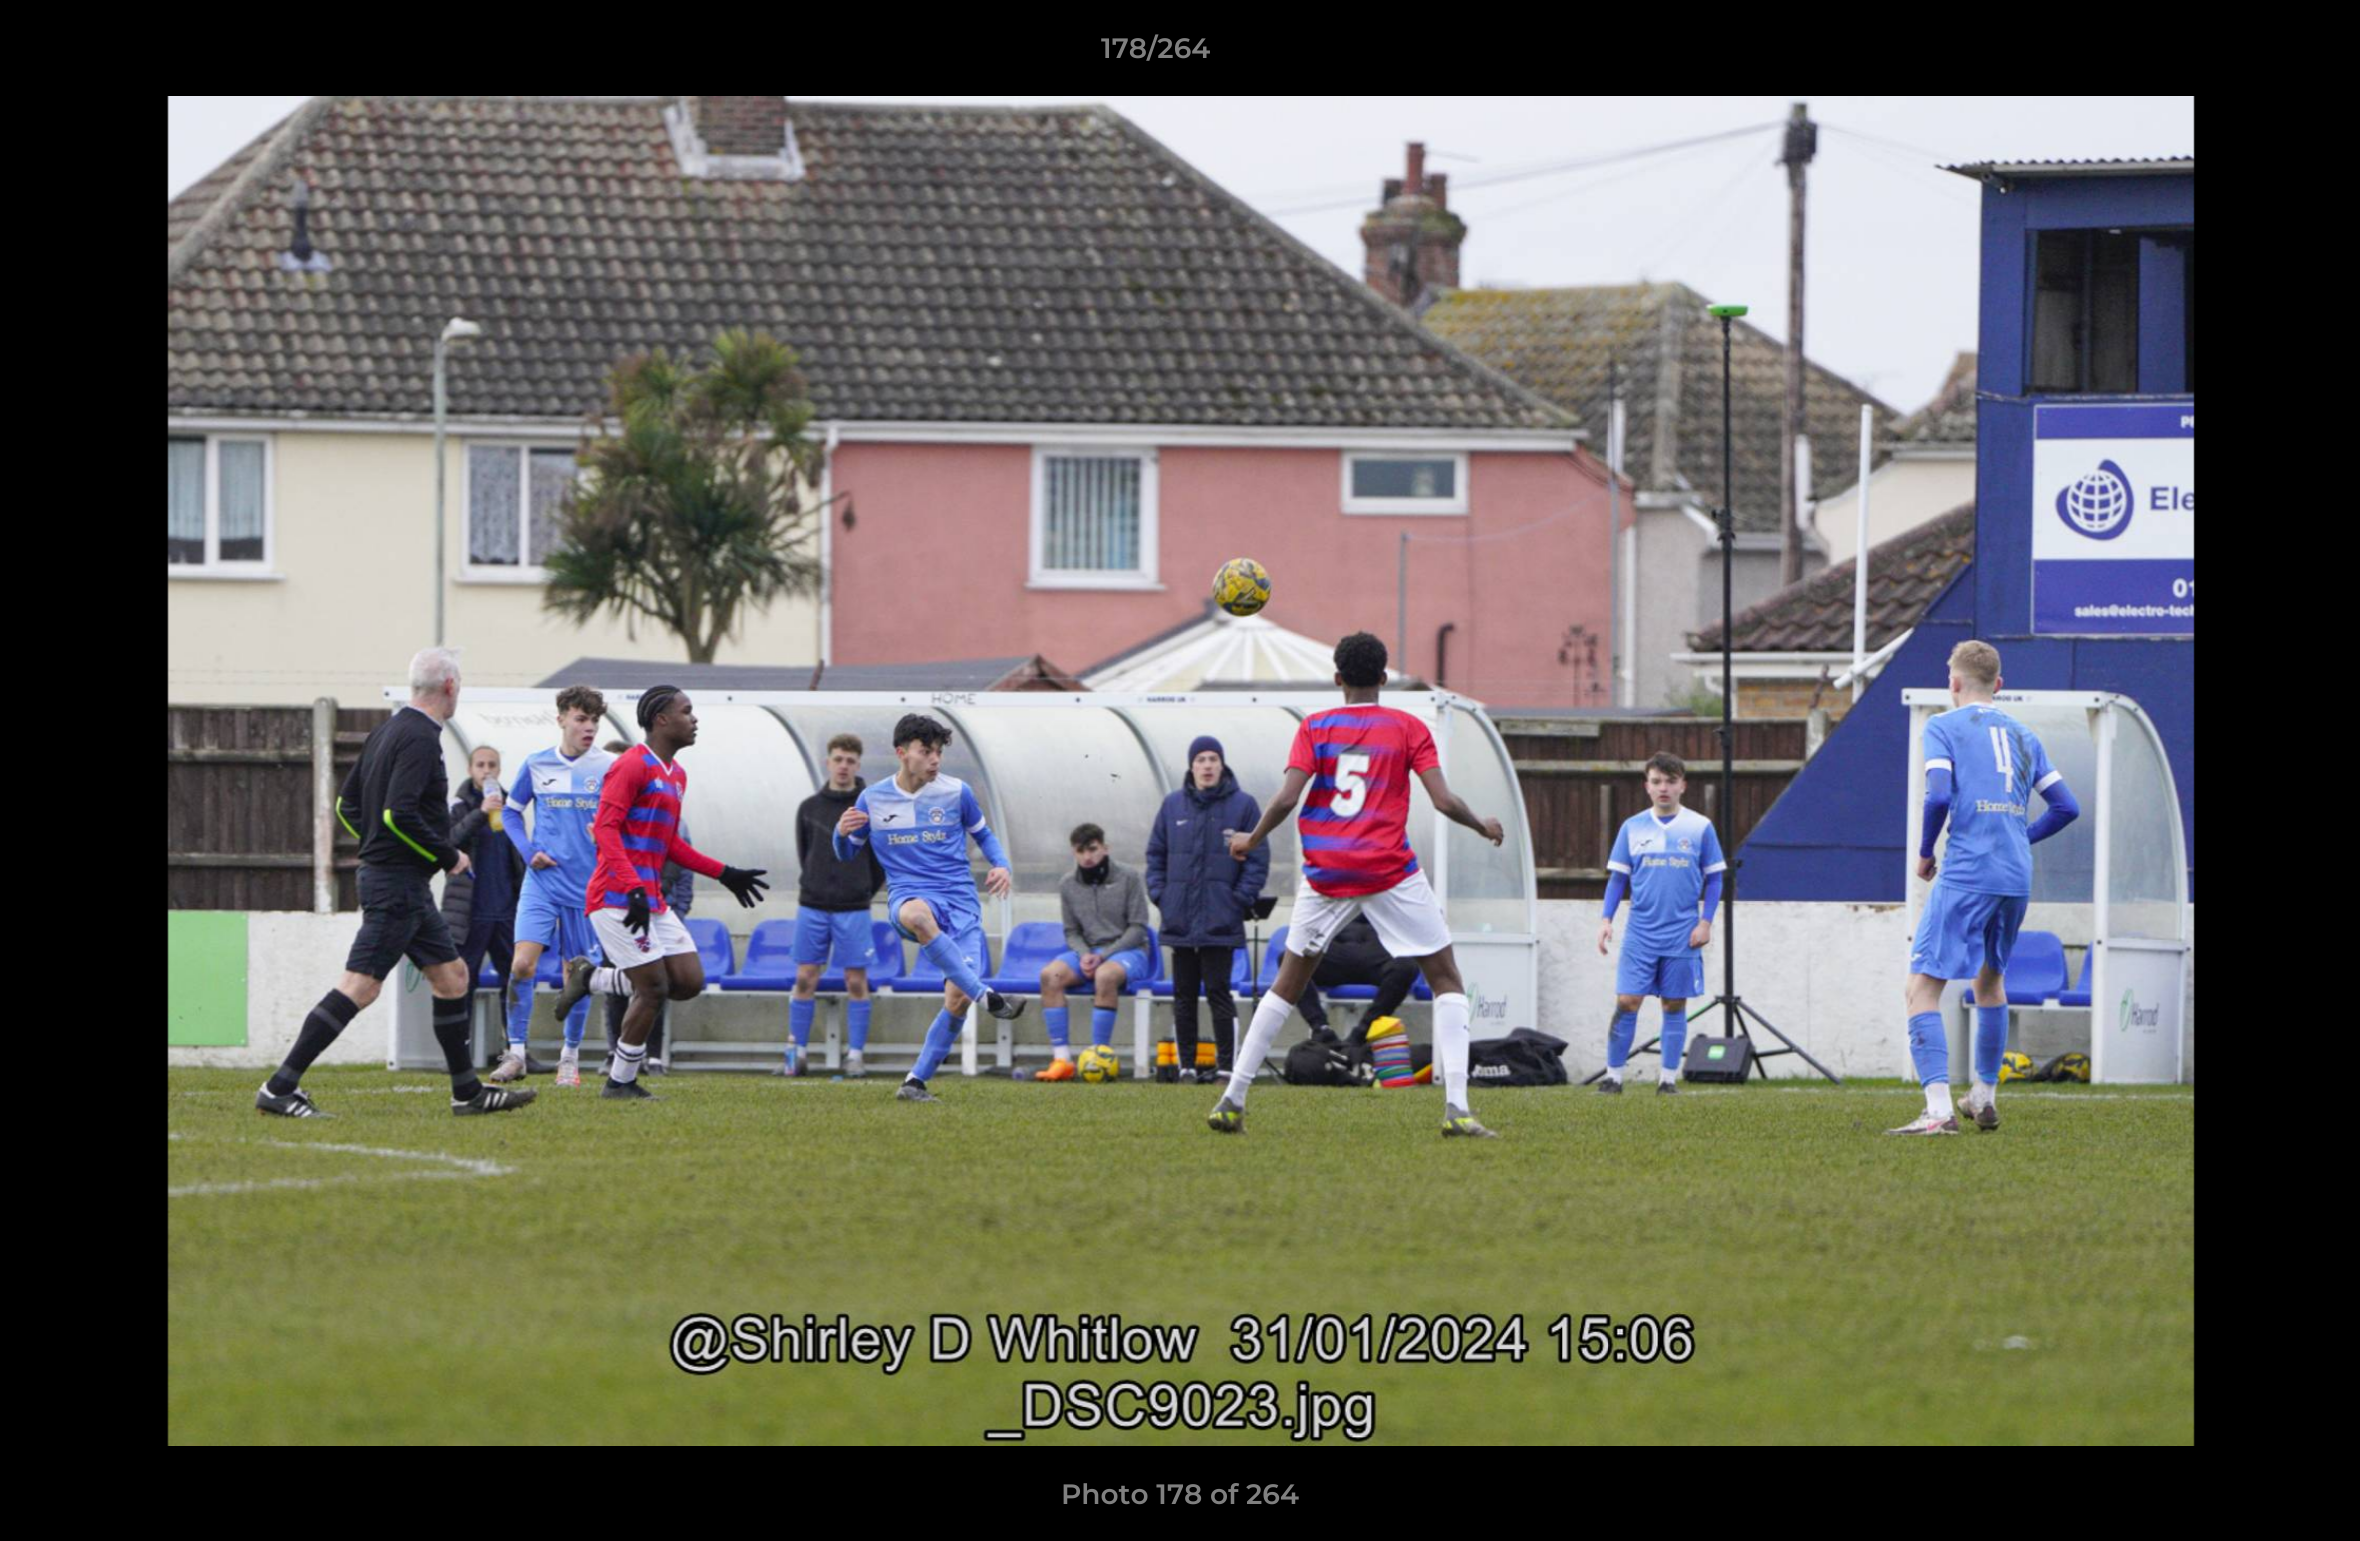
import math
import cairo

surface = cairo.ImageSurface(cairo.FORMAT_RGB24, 2360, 1541)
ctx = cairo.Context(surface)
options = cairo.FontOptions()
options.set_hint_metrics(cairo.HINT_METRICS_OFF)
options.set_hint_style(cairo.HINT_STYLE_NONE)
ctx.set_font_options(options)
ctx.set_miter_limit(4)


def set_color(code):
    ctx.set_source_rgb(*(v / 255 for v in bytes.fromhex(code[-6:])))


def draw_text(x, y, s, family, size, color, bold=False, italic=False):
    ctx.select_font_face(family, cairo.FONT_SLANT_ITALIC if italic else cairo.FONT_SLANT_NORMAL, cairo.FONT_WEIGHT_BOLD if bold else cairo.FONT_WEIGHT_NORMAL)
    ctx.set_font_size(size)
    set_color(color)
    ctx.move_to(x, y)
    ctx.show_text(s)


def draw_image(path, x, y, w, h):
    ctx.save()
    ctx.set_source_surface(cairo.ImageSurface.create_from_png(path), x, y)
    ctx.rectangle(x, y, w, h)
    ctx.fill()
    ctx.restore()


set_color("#000000")
ctx.paint()
draw_text(1101, 58, "178/264", "Montserrat SemiBold", 28, "#808080")
draw_image("assets/img1.png", 167, 96, 2028, 1350)
draw_text(1061, 1504, "Photo 178 of 264", "Montserrat SemiBold", 28, "#808080")
surface.write_to_png("output.png")
